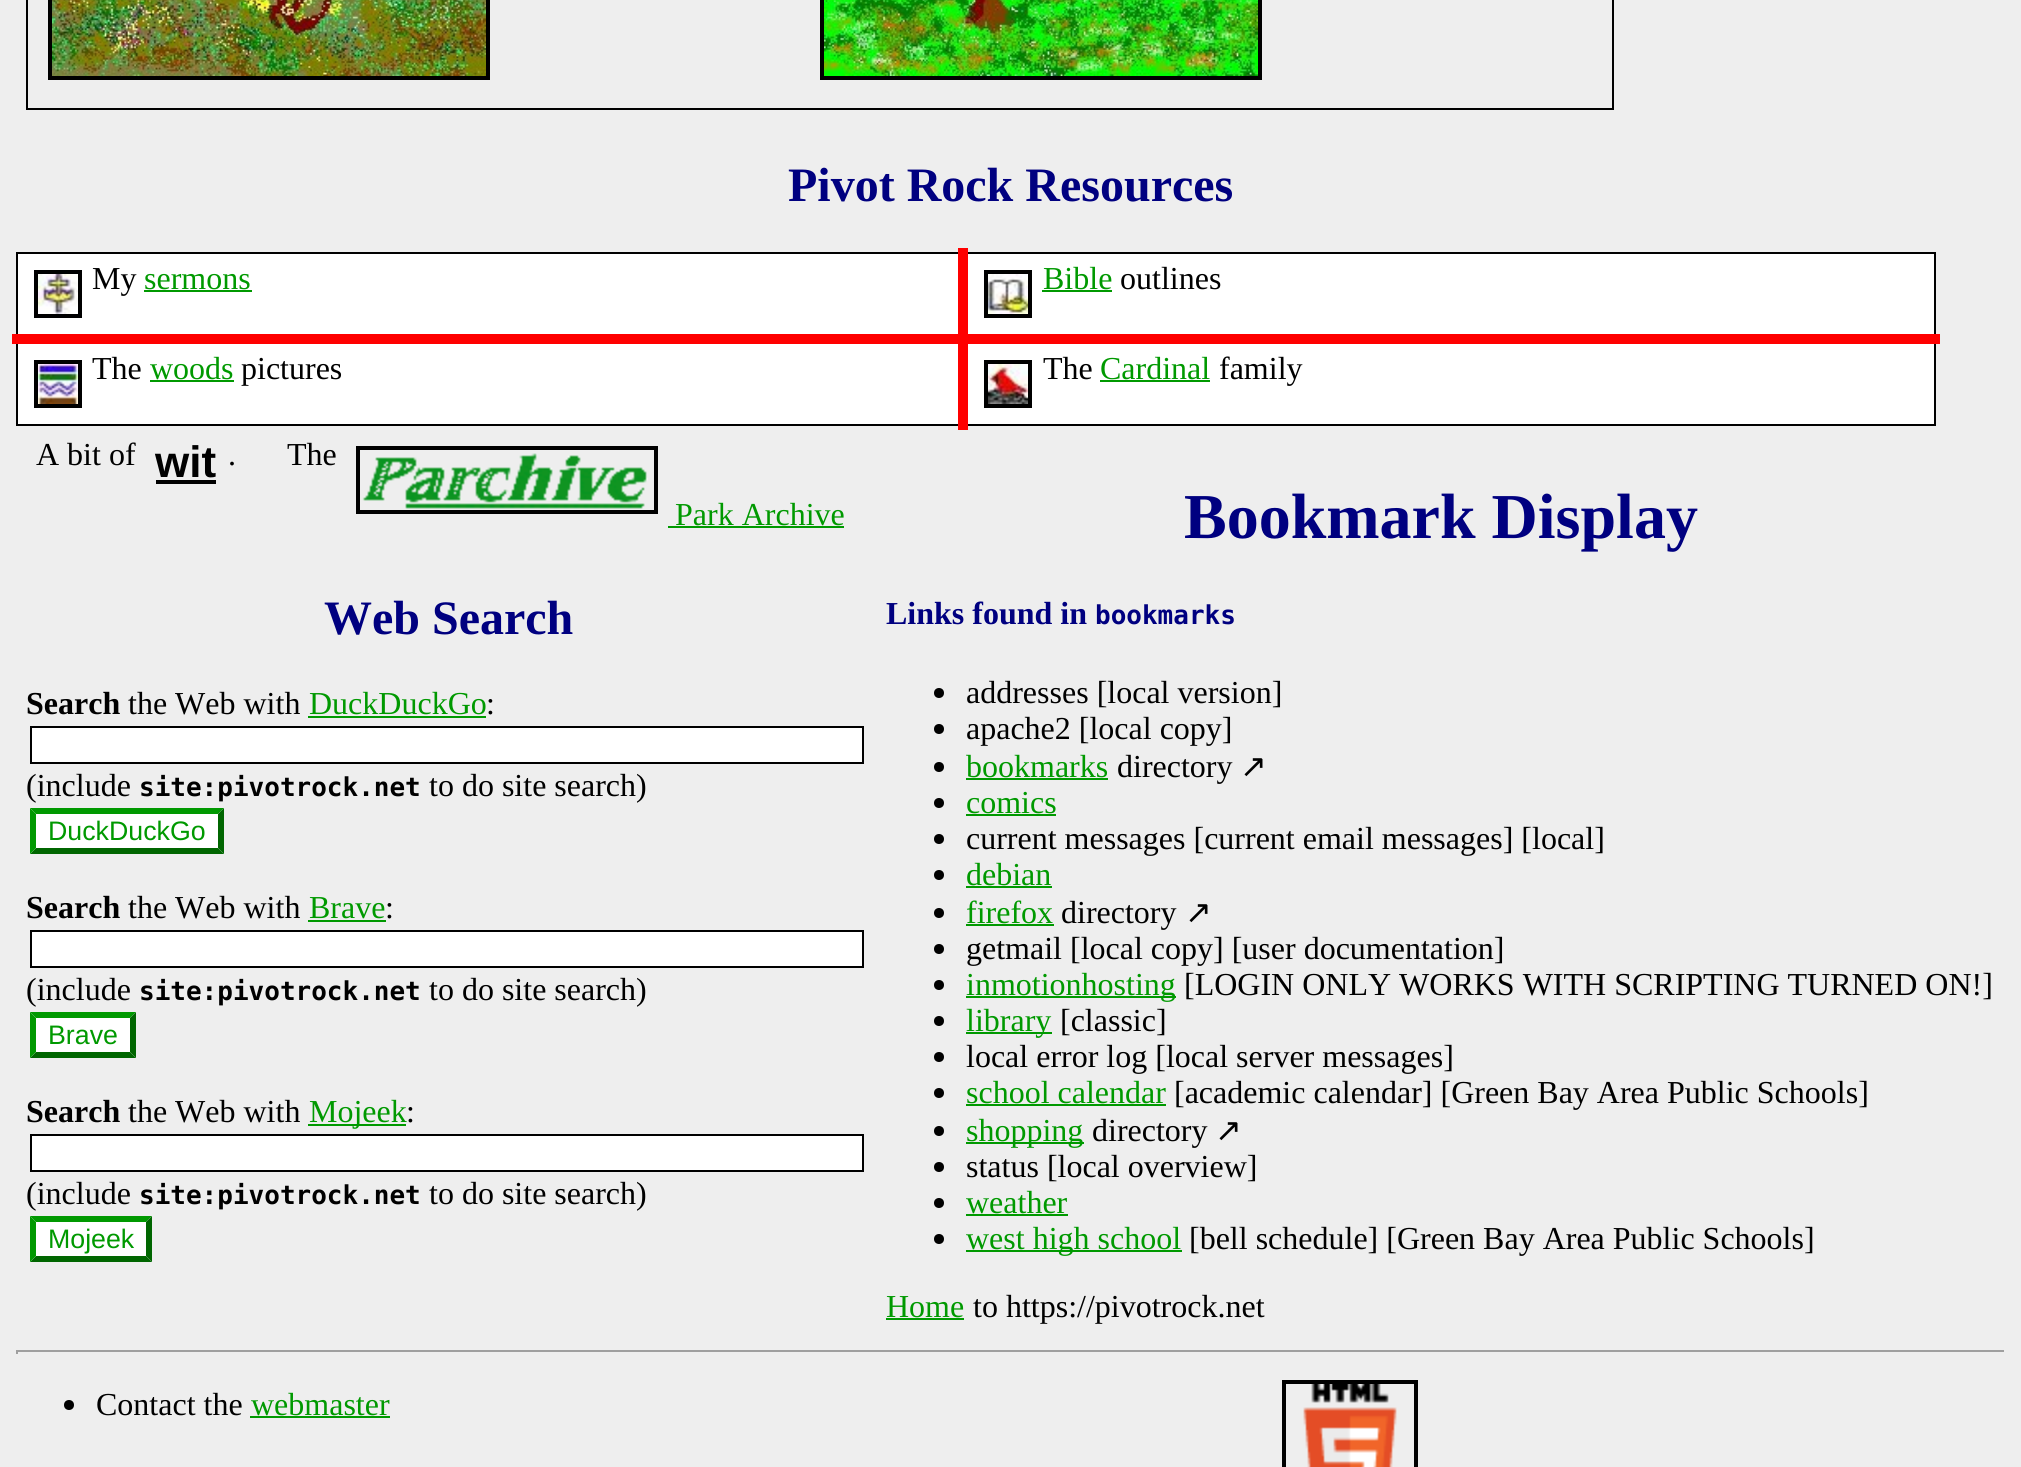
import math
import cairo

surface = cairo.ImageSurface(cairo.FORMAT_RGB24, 2021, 1467)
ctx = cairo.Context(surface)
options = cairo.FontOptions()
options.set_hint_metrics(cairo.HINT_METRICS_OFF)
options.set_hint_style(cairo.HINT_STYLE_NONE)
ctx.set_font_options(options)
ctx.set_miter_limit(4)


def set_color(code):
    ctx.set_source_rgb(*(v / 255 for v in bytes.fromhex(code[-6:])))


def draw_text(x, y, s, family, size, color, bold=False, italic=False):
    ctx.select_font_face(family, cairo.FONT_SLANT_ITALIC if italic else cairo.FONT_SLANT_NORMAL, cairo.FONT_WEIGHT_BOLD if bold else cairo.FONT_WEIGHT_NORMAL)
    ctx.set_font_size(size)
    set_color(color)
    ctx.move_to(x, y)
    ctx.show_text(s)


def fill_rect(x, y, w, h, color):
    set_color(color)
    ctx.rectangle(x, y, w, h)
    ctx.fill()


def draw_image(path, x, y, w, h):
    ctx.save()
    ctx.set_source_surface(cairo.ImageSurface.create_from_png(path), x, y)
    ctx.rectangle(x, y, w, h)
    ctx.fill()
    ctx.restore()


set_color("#eeeeee")
ctx.paint()
ctx.rectangle(27, -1, 1586, 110)
set_color("#000000")
ctx.stroke()
ctx.rectangle(50, -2, 438, 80)
ctx.set_line_width(4)
ctx.stroke()
draw_image("assets/img1.png", 52, 0, 434, 76)
ctx.rectangle(822, -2, 438, 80)
ctx.stroke()
draw_image("assets/img2.png", 824, 0, 434, 76)
draw_text(788, 201, "Pivot Rock Resources", "Liberation Serif", 48, "#000080", bold=True)
fill_rect(18, 254, 1916, 170, "#ffffff")
fill_rect(16, 252, 1920, 2, "#000000")
fill_rect(1934, 252, 2, 174, "#000000")
fill_rect(16, 424, 1920, 2, "#000000")
fill_rect(16, 252, 2, 174, "#000000")
ctx.rectangle(36, 272, 44, 44)
ctx.stroke()
draw_image("assets/img3.png", 38, 274, 40, 40)
draw_text(92, 289, "My", "Liberation Serif", 32, "#000000")
draw_text(144, 289, "sermons", "Liberation Serif", 32, "#009900")
fill_rect(144, 290, 108, 2, "#009900")
ctx.rectangle(986, 272, 44, 44)
set_color("#000000")
ctx.stroke()
draw_image("assets/img4.png", 988, 274, 40, 40)
draw_text(1043, 289, "Bible", "Liberation Serif", 32, "#009900")
fill_rect(1042, 290, 70, 2, "#009900")
draw_text(1120, 289, "outlines", "Liberation Serif", 32, "#000000")
fill_rect(12, 334, 946, 10, "#ff0000")
ctx.rectangle(36, 362, 44, 44)
set_color("#000000")
ctx.stroke()
draw_image("assets/img5.png", 38, 364, 40, 40)
draw_text(92, 379, "The", "Liberation Serif", 32, "#000000")
draw_text(150, 379, "woods", "Liberation Serif", 32, "#009900")
fill_rect(150, 380, 84, 2, "#009900")
draw_text(241, 379, "pictures", "Liberation Serif", 32, "#000000")
fill_rect(968, 334, 972, 10, "#ff0000")
fill_rect(958, 248, 10, 182, "#ff0000")
ctx.rectangle(986, 362, 44, 44)
set_color("#000000")
ctx.stroke()
draw_image("assets/img6.png", 988, 364, 40, 40)
draw_text(1043, 379, "The", "Liberation Serif", 32, "#000000")
draw_text(1100, 379, "Cardinal", "Liberation Serif", 32, "#009900")
fill_rect(1100, 380, 110, 2, "#009900")
draw_text(1219, 379, "family", "Liberation Serif", 32, "#000000")
draw_text(36, 465, "A bit of", "Liberation Serif", 32, "#000000")
draw_text(155, 477, "wit", "Liberation Sans", 44, "#000000", bold=True)
fill_rect(156, 480, 60, 4, "#000000")
draw_text(228, 465, ".", "Liberation Serif", 32, "#000000")
draw_text(287, 465, "The", "Liberation Serif", 32, "#000000")
ctx.rectangle(358, 448, 298, 64)
ctx.stroke()
draw_image("assets/img7.png", 362, 453, 286, 56)
draw_text(675, 525, "Park Archive", "Liberation Serif", 32, "#009900")
fill_rect(668, 526, 176, 2, "#009900")
draw_text(1184, 538, "Bookmark Display", "Liberation Serif", 64, "#000080", bold=True)
draw_text(886, 624, "Links found in", "Liberation Serif", 32, "#000080", bold=True)
draw_text(1095, 624, "bookmarks", "DejaVu Sans Mono", 26, "#000080", bold=True)
set_color("#000000")
ctx.new_path()
ctx.arc(939, 693, 5, 0, 2 * math.pi)
ctx.fill()
draw_text(966, 703, "addresses [local version]", "Liberation Serif", 32, "#000000")
ctx.new_path()
ctx.arc(939, 729, 5, 0, 2 * math.pi)
ctx.fill()
draw_text(966, 739, "apache2 [local copy]", "Liberation Serif", 32, "#000000")
ctx.new_path()
ctx.arc(939, 767, 5, 0, 2 * math.pi)
ctx.fill()
draw_text(966, 777, "bookmarks", "Liberation Serif", 32, "#009900")
fill_rect(966, 778, 142, 2, "#009900")
draw_text(1117, 777, "directory", "Liberation Serif", 32, "#000000")
draw_text(1240, 777, "↗", "DejaVu Sans", 32, "#000000")
ctx.new_path()
ctx.arc(939, 803, 5, 0, 2 * math.pi)
ctx.fill()
draw_text(966, 813, "comics", "Liberation Serif", 32, "#009900")
fill_rect(966, 814, 90, 2, "#009900")
set_color("#000000")
ctx.new_path()
ctx.arc(939, 839, 5, 0, 2 * math.pi)
ctx.fill()
draw_text(966, 849, "current messages [current email messages] [local]", "Liberation Serif", 32, "#000000")
ctx.new_path()
ctx.arc(939, 875, 5, 0, 2 * math.pi)
ctx.fill()
draw_text(966, 885, "debian", "Liberation Serif", 32, "#009900")
fill_rect(966, 886, 86, 2, "#009900")
set_color("#000000")
ctx.new_path()
ctx.arc(939, 913, 5, 0, 2 * math.pi)
ctx.fill()
draw_text(966, 923, "firefox", "Liberation Serif", 32, "#009900")
fill_rect(966, 924, 88, 2, "#009900")
draw_text(1061, 923, "directory", "Liberation Serif", 32, "#000000")
draw_text(1185, 923, "↗", "DejaVu Sans", 32, "#000000")
ctx.new_path()
ctx.arc(939, 949, 5, 0, 2 * math.pi)
ctx.fill()
draw_text(966, 959, "getmail [local copy] [user documentation]", "Liberation Serif", 32, "#000000")
ctx.new_path()
ctx.arc(939, 985, 5, 0, 2 * math.pi)
ctx.fill()
fill_rect(966, 996, 210, 2, "#009900")
draw_text(966, 995, "inmotionhosting", "Liberation Serif", 32, "#009900")
draw_text(1184, 995, "[LOGIN ONLY WORKS WITH SCRIPTING TURNED ON!]", "Liberation Serif", 32, "#000000")
ctx.new_path()
ctx.arc(939, 1021, 5, 0, 2 * math.pi)
ctx.fill()
fill_rect(966, 1032, 86, 2, "#009900")
draw_text(966, 1031, "library", "Liberation Serif", 32, "#009900")
draw_text(1060, 1031, "[classic]", "Liberation Serif", 32, "#000000")
ctx.new_path()
ctx.arc(939, 1057, 5, 0, 2 * math.pi)
ctx.fill()
draw_text(966, 1067, "local error log [local server messages]", "Liberation Serif", 32, "#000000")
ctx.new_path()
ctx.arc(939, 1093, 5, 0, 2 * math.pi)
ctx.fill()
draw_text(966, 1103, "school calendar", "Liberation Serif", 32, "#009900")
fill_rect(966, 1104, 200, 2, "#009900")
draw_text(1174, 1103, "[academic calendar] [Green Bay Area Public Schools]", "Liberation Serif", 32, "#000000")
ctx.new_path()
ctx.arc(939, 1131, 5, 0, 2 * math.pi)
ctx.fill()
fill_rect(966, 1142, 118, 2, "#009900")
draw_text(966, 1141, "shopping", "Liberation Serif", 32, "#009900")
draw_text(1092, 1141, "directory", "Liberation Serif", 32, "#000000")
draw_text(1215, 1141, "↗", "DejaVu Sans", 32, "#000000")
ctx.new_path()
ctx.arc(939, 1167, 5, 0, 2 * math.pi)
ctx.fill()
draw_text(966, 1177, "status [local overview]", "Liberation Serif", 32, "#000000")
ctx.new_path()
ctx.arc(939, 1203, 5, 0, 2 * math.pi)
ctx.fill()
draw_text(966, 1213, "weather", "Liberation Serif", 32, "#009900")
fill_rect(966, 1214, 102, 2, "#009900")
set_color("#000000")
ctx.new_path()
ctx.arc(939, 1239, 5, 0, 2 * math.pi)
ctx.fill()
fill_rect(966, 1250, 216, 2, "#009900")
draw_text(966, 1249, "west high school", "Liberation Serif", 32, "#009900")
draw_text(1189, 1249, "[bell schedule] [Green Bay Area Public Schools]", "Liberation Serif", 32, "#000000")
draw_text(886, 1317, "Home", "Liberation Serif", 32, "#009900")
fill_rect(886, 1318, 78, 2, "#009900")
draw_text(973, 1317, "to https://pivotrock.net", "Liberation Serif", 32, "#000000")
draw_text(324, 634, "Web Search", "Liberation Serif", 48, "#000080", bold=True)
draw_text(26, 714, "Search", "Liberation Serif", 32, "#000000", bold=True)
draw_text(128, 714, "the Web with", "Liberation Serif", 32, "#000000")
draw_text(309, 714, "DuckDuckGo", "Liberation Serif", 32, "#009900")
fill_rect(308, 716, 178, 2, "#009900")
draw_text(486, 714, ":", "Liberation Serif", 32, "#000000")
set_color("#ffffff")
ctx.rectangle(31, 727, 832, 36)
ctx.fill_preserve()
set_color("#000000")
ctx.set_line_width(2)
ctx.stroke()
draw_text(26, 796, "(include", "Liberation Serif", 32, "#000000")
draw_text(139, 796, "site:pivotrock.net", "DejaVu Sans Mono", 26, "#000000", bold=True)
draw_text(429, 796, "to do site search)", "Liberation Serif", 32, "#000000")
fill_rect(30, 808, 194, 46, "#ffffff")
set_color("#009900")
ctx.new_path()
ctx.move_to(30, 808)
ctx.line_to(224, 808)
ctx.line_to(218, 814)
ctx.line_to(36, 814)
ctx.close_path()
ctx.fill()
set_color("#006600")
ctx.new_path()
ctx.move_to(224, 808)
ctx.line_to(224, 854)
ctx.line_to(218, 848)
ctx.line_to(218, 814)
ctx.close_path()
ctx.fill()
ctx.new_path()
ctx.move_to(224, 854)
ctx.line_to(30, 854)
ctx.line_to(36, 848)
ctx.line_to(218, 848)
ctx.close_path()
ctx.fill()
set_color("#009900")
ctx.new_path()
ctx.move_to(30, 854)
ctx.line_to(30, 808)
ctx.line_to(36, 814)
ctx.line_to(36, 848)
ctx.close_path()
ctx.fill()
draw_text(48, 840, "DuckDuckGo", "Liberation Sans", 26.75, "#009900")
draw_text(26, 918, "Search", "Liberation Serif", 32, "#000000", bold=True)
draw_text(128, 918, "the Web with", "Liberation Serif", 32, "#000000")
draw_text(309, 918, "Brave", "Liberation Serif", 32, "#009900")
fill_rect(308, 920, 78, 2, "#009900")
draw_text(385, 918, ":", "Liberation Serif", 32, "#000000")
set_color("#ffffff")
ctx.rectangle(31, 931, 832, 36)
ctx.fill_preserve()
set_color("#000000")
ctx.stroke()
draw_text(26, 1000, "(include", "Liberation Serif", 32, "#000000")
draw_text(139, 1000, "site:pivotrock.net", "DejaVu Sans Mono", 26, "#000000", bold=True)
draw_text(429, 1000, "to do site search)", "Liberation Serif", 32, "#000000")
fill_rect(30, 1012, 106, 46, "#ffffff")
set_color("#009900")
ctx.new_path()
ctx.move_to(30, 1012)
ctx.line_to(136, 1012)
ctx.line_to(130, 1018)
ctx.line_to(36, 1018)
ctx.close_path()
ctx.fill()
set_color("#006600")
ctx.new_path()
ctx.move_to(136, 1012)
ctx.line_to(136, 1058)
ctx.line_to(130, 1052)
ctx.line_to(130, 1018)
ctx.close_path()
ctx.fill()
ctx.new_path()
ctx.move_to(136, 1058)
ctx.line_to(30, 1058)
ctx.line_to(36, 1052)
ctx.line_to(130, 1052)
ctx.close_path()
ctx.fill()
set_color("#009900")
ctx.new_path()
ctx.move_to(30, 1058)
ctx.line_to(30, 1012)
ctx.line_to(36, 1018)
ctx.line_to(36, 1052)
ctx.close_path()
ctx.fill()
draw_text(48, 1044, "Brave", "Liberation Sans", 26.75, "#009900")
draw_text(26, 1122, "Search", "Liberation Serif", 32, "#000000", bold=True)
draw_text(128, 1122, "the Web with", "Liberation Serif", 32, "#000000")
fill_rect(308, 1124, 98, 2, "#009900")
draw_text(309, 1122, "Mojeek", "Liberation Serif", 32, "#009900")
draw_text(406, 1122, ":", "Liberation Serif", 32, "#000000")
set_color("#ffffff")
ctx.rectangle(31, 1135, 832, 36)
ctx.fill_preserve()
set_color("#000000")
ctx.stroke()
draw_text(26, 1204, "(include", "Liberation Serif", 32, "#000000")
draw_text(139, 1204, "site:pivotrock.net", "DejaVu Sans Mono", 26, "#000000", bold=True)
draw_text(429, 1204, "to do site search)", "Liberation Serif", 32, "#000000")
fill_rect(30, 1216, 122, 46, "#ffffff")
set_color("#009900")
ctx.new_path()
ctx.move_to(30, 1216)
ctx.line_to(152, 1216)
ctx.line_to(146, 1222)
ctx.line_to(36, 1222)
ctx.close_path()
ctx.fill()
set_color("#006600")
ctx.new_path()
ctx.move_to(152, 1216)
ctx.line_to(152, 1262)
ctx.line_to(146, 1256)
ctx.line_to(146, 1222)
ctx.close_path()
ctx.fill()
ctx.new_path()
ctx.move_to(152, 1262)
ctx.line_to(30, 1262)
ctx.line_to(36, 1256)
ctx.line_to(146, 1256)
ctx.close_path()
ctx.fill()
set_color("#009900")
ctx.new_path()
ctx.move_to(30, 1262)
ctx.line_to(30, 1216)
ctx.line_to(36, 1222)
ctx.line_to(36, 1256)
ctx.close_path()
ctx.fill()
draw_text(48, 1248, "Mojeek", "Liberation Sans", 26.75, "#009900")
fill_rect(16, 1350, 1990, 2, "#9f9f9f")
fill_rect(2004, 1350, 2, 4, "#eeeeee")
fill_rect(16, 1350, 2, 4, "#9f9f9f")
set_color("#000000")
ctx.new_path()
ctx.arc(69, 1405, 5, 0, 2 * math.pi)
ctx.fill()
draw_text(96, 1415, "Contact the", "Liberation Serif", 32, "#000000")
draw_text(251, 1415, "webmaster", "Liberation Serif", 32, "#009900")
fill_rect(250, 1416, 140, 2, "#009900")
ctx.rectangle(1284, 1382, 132, 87)
set_color("#000000")
ctx.set_line_width(4)
ctx.stroke()
draw_image("assets/img8.png", 1303, 1384, 94, 83)
surface.write_to_png("output.png")
